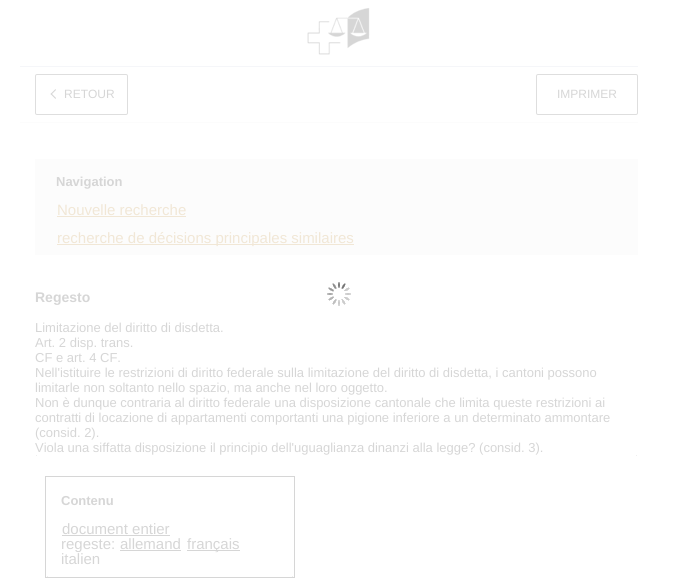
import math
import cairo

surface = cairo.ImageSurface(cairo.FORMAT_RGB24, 678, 587)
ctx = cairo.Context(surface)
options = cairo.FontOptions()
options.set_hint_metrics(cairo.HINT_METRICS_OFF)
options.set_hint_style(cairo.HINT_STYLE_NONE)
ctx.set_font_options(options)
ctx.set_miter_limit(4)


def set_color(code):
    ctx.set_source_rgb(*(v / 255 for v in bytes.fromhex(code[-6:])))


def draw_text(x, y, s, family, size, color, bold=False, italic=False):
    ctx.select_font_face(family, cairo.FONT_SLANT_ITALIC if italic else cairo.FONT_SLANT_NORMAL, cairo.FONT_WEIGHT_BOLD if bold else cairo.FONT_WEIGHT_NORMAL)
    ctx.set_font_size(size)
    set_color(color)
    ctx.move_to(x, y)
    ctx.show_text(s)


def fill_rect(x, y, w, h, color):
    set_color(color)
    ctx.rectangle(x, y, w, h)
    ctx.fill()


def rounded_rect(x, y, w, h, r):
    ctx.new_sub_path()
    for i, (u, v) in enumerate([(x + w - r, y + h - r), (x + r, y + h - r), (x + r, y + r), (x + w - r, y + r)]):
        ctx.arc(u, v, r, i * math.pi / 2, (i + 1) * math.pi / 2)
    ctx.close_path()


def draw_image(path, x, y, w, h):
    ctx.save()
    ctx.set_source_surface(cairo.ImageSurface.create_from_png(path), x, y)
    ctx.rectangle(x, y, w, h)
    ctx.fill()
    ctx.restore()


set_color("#ffffff")
ctx.paint()
draw_image("assets/img1.png", 307, 7, 63, 48)
fill_rect(20, 66, 618, 1, "#f5f6f9")
rounded_rect(35.5, 74.5, 92, 40, 1.5)
set_color("#dedede")
ctx.set_line_width(1)
ctx.stroke()
set_color("#d6d6d6")
ctx.new_path()
ctx.move_to(51.5, 93.5)
ctx.line_to(56, 98)
ctx.line_to(55.5, 99)
ctx.line_to(50.5, 94)
ctx.close_path()
ctx.fill()
ctx.new_path()
ctx.move_to(55.5, 89)
ctx.line_to(56, 90)
ctx.line_to(51.5, 94.5)
ctx.line_to(50.5, 94)
ctx.close_path()
ctx.fill()
draw_text(64, 98, "RETOUR", "Liberation Sans", 12, "#d6d6d6")
fill_rect(20, 122, 618, 1, "#fcfcfc")
rounded_rect(536.5, 74.5, 101, 40, 1.5)
set_color("#dedede")
ctx.stroke()
draw_text(557, 98, "IMPRIMER", "Liberation Sans", 12, "#d6d6d6")
fill_rect(35, 159, 603, 96, "#fcfcfc")
draw_text(56, 186, "Navigation", "Liberation Sans", 13, "#d6d6d6", bold=True)
draw_text(57, 215, "Nouvelle recherche", "Liberation Sans", 15, "#f1e7d6")
fill_rect(57, 216, 129, 1, "#f1e7d6")
fill_rect(57, 244, 297, 1, "#f1e7d6")
draw_text(57, 243, "recherche de décisions principales similaires", "Liberation Sans", 15, "#f1e7d6")
draw_text(35, 302, "Regesto", "Liberation Sans", 14, "#d6d6d6", bold=True)
draw_text(35, 332, "Limitazione del diritto di disdetta.", "Liberation Sans", 13, "#d6d6d6")
draw_text(35, 347, "Art. 2 disp. trans.", "Liberation Sans", 13, "#d6d6d6")
draw_text(35, 362, "CF e art. 4 CF.", "Liberation Sans", 13, "#d6d6d6")
draw_text(35, 377, "Nell'istituire le restrizioni di diritto federale sulla limitazione del diritto di disdetta, i cantoni possono", "Liberation Sans", 13, "#d6d6d6")
draw_text(35, 392, "limitarle non soltanto nello spazio, ma anche nel loro oggetto.", "Liberation Sans", 13, "#d6d6d6")
draw_text(35, 407, "Non è dunque contraria al diritto federale una disposizione cantonale che limita queste restrizioni ai", "Liberation Sans", 13, "#d6d6d6")
draw_text(35, 422, "contratti di locazione di appartamenti comportanti una pigione inferiore a un determinato ammontare", "Liberation Sans", 13, "#d6d6d6")
draw_text(35, 437, "(consid. 2).", "Liberation Sans", 13, "#d6d6d6")
draw_text(35, 452, "Viola una siffatta disposizione il principio dell'uguaglianza dinanzi alla legge? (consid. 3).", "Liberation Sans", 13, "#d6d6d6")
fill_rect(636, 455, 1, 1, "#efefef")
fill_rect(36, 455, 1, 1, "#efefef")
ctx.rectangle(45.5, 476.5, 249, 101)
set_color("#d6d6d6")
ctx.stroke()
draw_text(61, 505, "Contenu", "Liberation Sans", 13, "#d6d6d6", bold=True)
draw_text(62, 534, "document entier", "Liberation Sans", 15, "#d6d6d6")
fill_rect(62, 535, 108, 1, "#d6d6d6")
draw_text(61, 549, "regeste:", "Liberation Sans", 15, "#d6d6d6")
draw_text(120, 549, "allemand", "Liberation Sans", 15, "#d6d6d6")
fill_rect(120, 550, 61, 1, "#d6d6d6")
fill_rect(187, 550, 53, 1, "#d6d6d6")
draw_text(187, 549, "français", "Liberation Sans", 15, "#d6d6d6")
draw_text(61, 564, "italien", "Liberation Sans", 15, "#d6d6d6")
fill_rect(292, 576, 1, 1, "#efefef")
fill_rect(47, 576, 1, 1, "#efefef")
draw_image("assets/img2.png", 327, 282, 24, 24)
surface.write_to_png("output.png")
